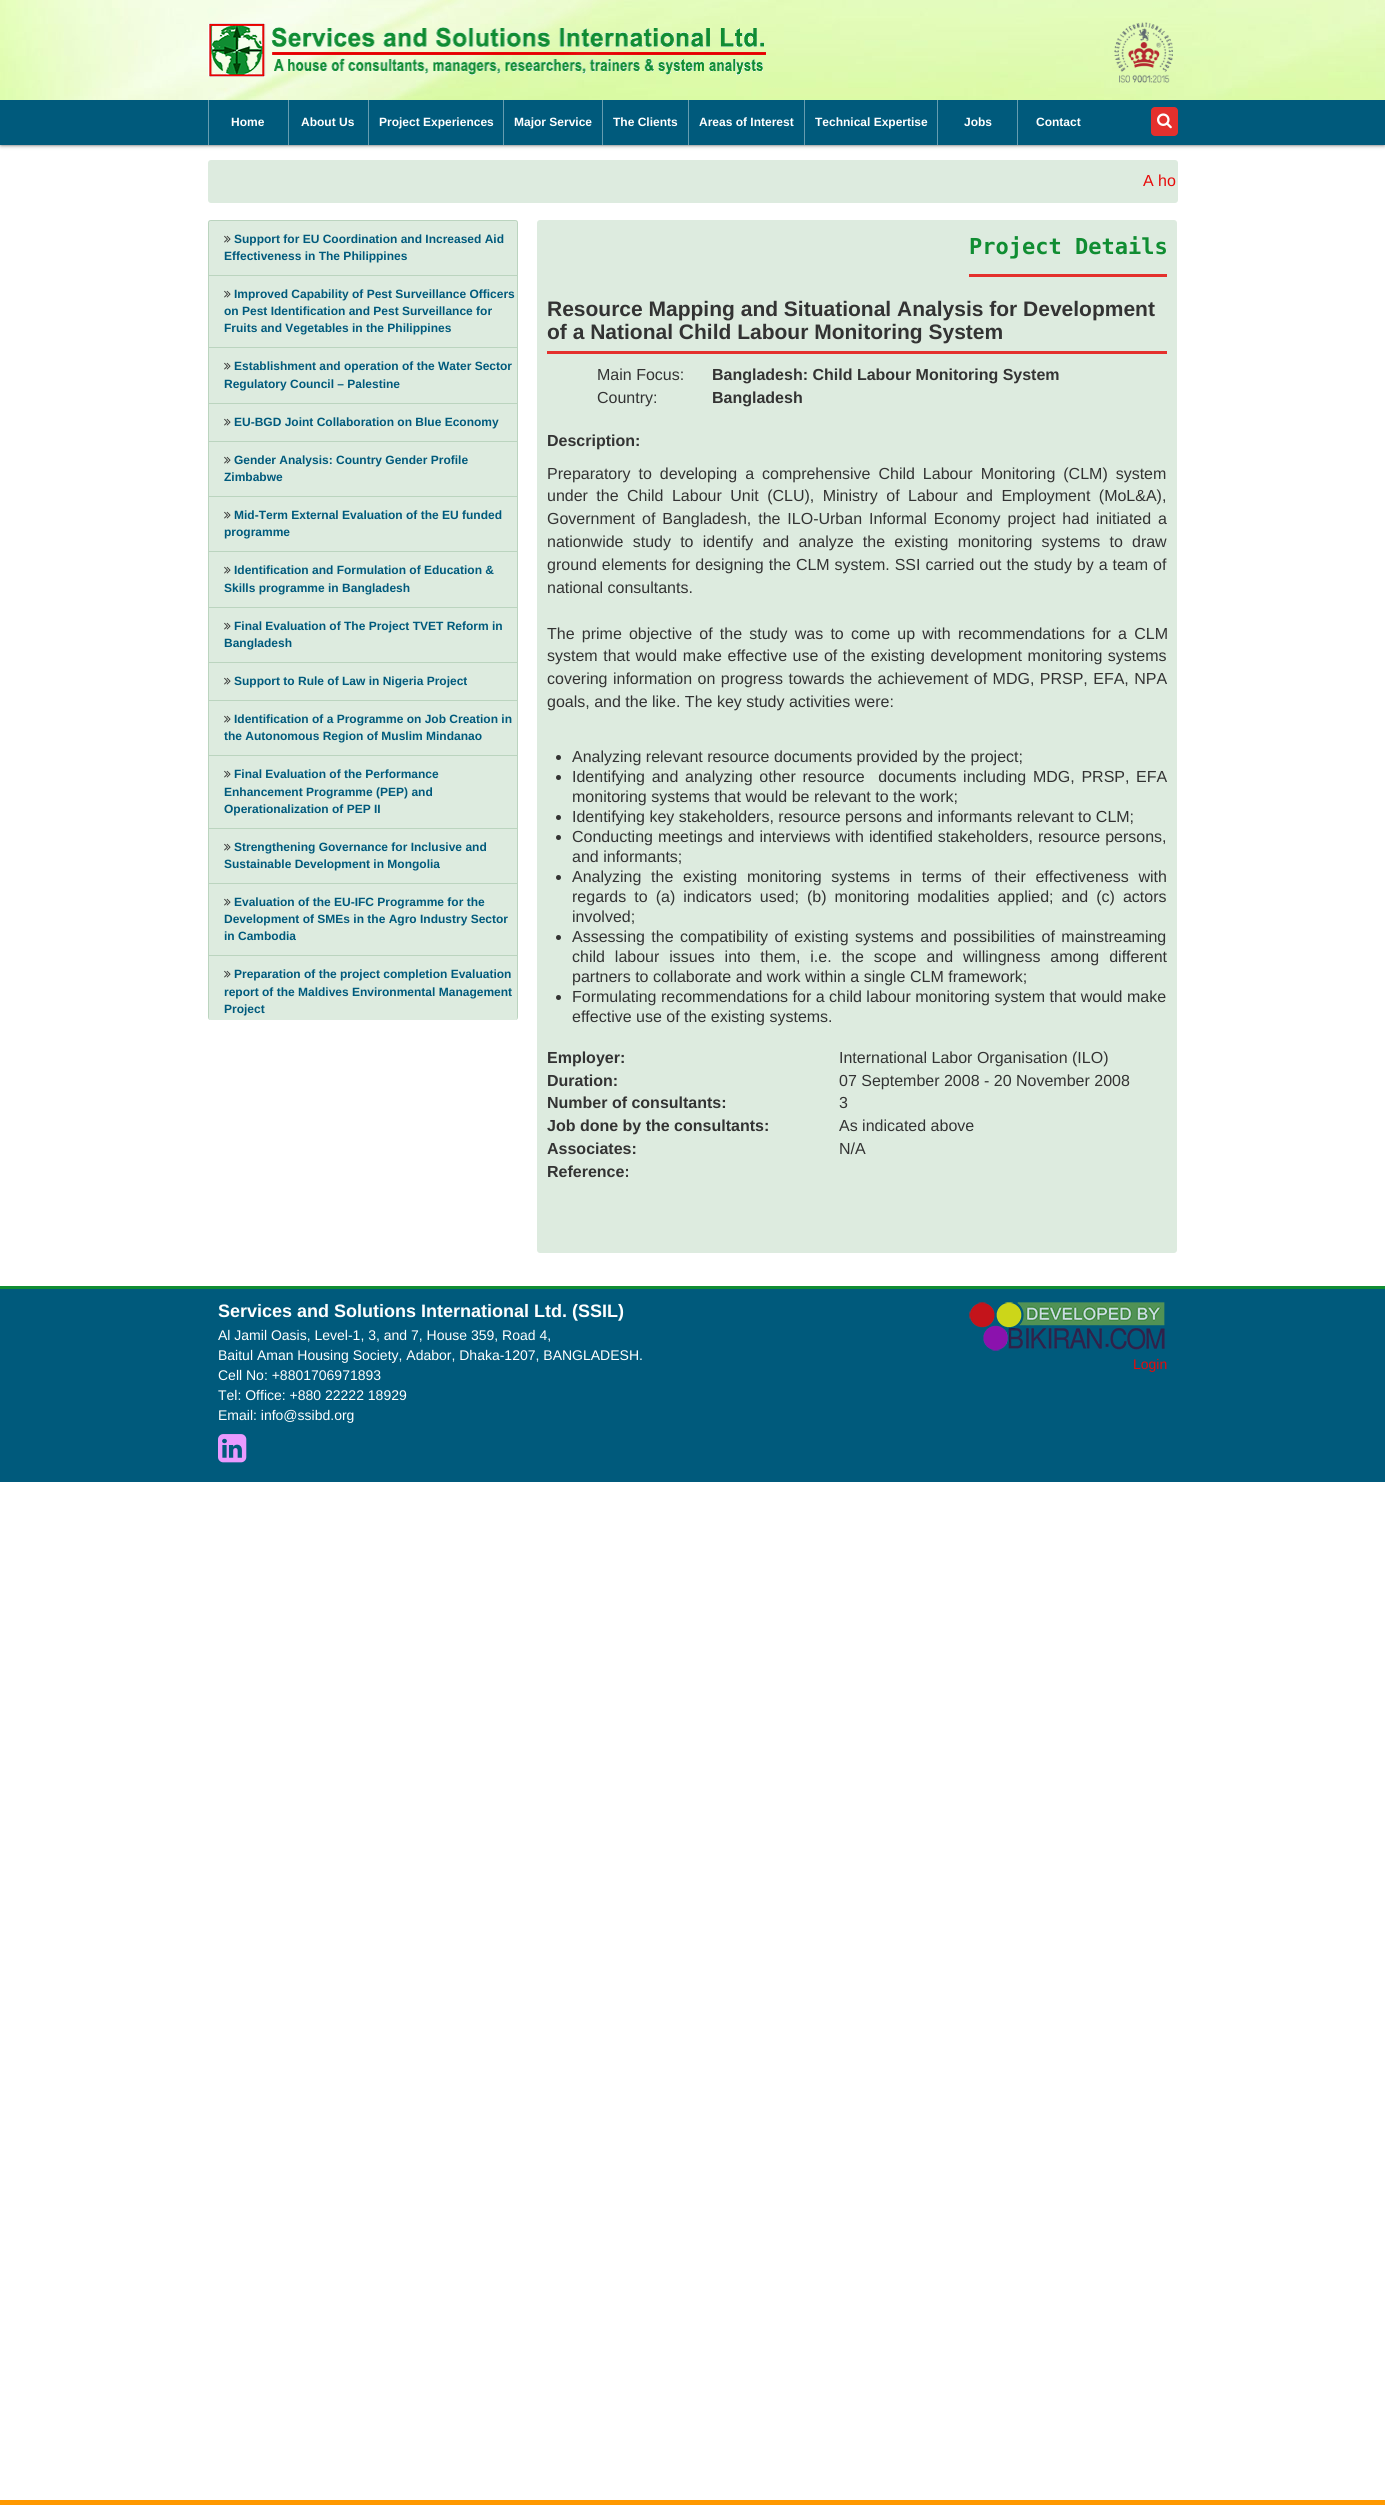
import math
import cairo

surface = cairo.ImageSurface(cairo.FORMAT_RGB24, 1385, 2505)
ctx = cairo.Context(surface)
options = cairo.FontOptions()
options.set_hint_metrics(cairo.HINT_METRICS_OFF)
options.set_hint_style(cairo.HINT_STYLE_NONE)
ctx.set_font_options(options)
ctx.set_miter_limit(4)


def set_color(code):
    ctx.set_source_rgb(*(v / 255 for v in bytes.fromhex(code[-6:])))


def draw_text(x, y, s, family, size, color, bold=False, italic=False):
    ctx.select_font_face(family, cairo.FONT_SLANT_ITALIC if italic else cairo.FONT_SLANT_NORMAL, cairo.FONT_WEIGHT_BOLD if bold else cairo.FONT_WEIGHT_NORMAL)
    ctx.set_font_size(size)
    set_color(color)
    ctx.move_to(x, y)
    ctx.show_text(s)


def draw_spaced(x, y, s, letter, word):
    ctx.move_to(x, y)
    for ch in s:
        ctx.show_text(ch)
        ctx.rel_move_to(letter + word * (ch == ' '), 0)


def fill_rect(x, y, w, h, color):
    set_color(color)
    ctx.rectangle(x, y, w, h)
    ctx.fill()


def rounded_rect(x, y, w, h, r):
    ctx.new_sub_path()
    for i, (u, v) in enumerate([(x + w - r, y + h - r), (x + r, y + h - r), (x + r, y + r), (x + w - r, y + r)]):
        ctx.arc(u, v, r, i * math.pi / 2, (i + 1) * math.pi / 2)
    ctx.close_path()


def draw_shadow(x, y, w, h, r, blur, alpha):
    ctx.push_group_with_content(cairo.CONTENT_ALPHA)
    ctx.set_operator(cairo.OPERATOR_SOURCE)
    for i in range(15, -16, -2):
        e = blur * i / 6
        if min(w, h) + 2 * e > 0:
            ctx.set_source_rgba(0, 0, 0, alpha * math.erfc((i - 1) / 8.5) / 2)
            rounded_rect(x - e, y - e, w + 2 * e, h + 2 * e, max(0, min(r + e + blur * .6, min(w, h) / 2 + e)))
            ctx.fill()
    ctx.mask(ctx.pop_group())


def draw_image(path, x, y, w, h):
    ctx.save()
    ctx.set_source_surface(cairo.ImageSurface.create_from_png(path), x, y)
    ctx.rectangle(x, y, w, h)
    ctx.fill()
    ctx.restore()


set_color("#ffffff")
ctx.paint()
set_color("#000000")
draw_shadow(1, 1, 1383, 143, 0, 2.5, 1)
draw_image("assets/img1.png", 0, 0, 1385, 100)
draw_image("assets/img2.png", 208, 23, 558, 54)
draw_image("assets/img3.png", 1114, 22, 59, 61)
fill_rect(0, 100, 1385, 45, "#005a7c")
fill_rect(208, 100, 1, 45, "#669cb0")
draw_text(231, 126, "Home", "Liberation Sans", 12, "#ffffff", bold=True)
fill_rect(288, 100, 1, 45, "#669cb0")
draw_text(301, 126, "About Us", "Liberation Sans", 12, "#ffffff", bold=True)
fill_rect(368, 100, 1, 45, "#669cb0")
draw_text(379, 126, "Project Experiences", "Liberation Sans", 12, "#ffffff", bold=True)
fill_rect(503, 100, 1, 45, "#669cb0")
draw_text(514, 126, "Major Service", "Liberation Sans", 12, "#ffffff", bold=True)
fill_rect(602, 100, 1, 45, "#669cb0")
draw_text(613, 126, "The Clients", "Liberation Sans", 12, "#ffffff", bold=True)
fill_rect(688, 100, 1, 45, "#669cb0")
draw_text(699, 126, "Areas of Interest", "Liberation Sans", 12, "#ffffff", bold=True)
fill_rect(804, 100, 1, 45, "#669cb0")
draw_text(815, 126, "Technical Expertise", "Liberation Sans", 12, "#ffffff", bold=True)
fill_rect(937, 100, 1, 45, "#669cb0")
draw_text(964, 126, "Jobs", "Liberation Sans", 12, "#ffffff", bold=True)
fill_rect(1017, 100, 1, 45, "#669cb0")
draw_text(1036, 126, "Contact", "Liberation Sans", 12, "#ffffff", bold=True)
set_color("#e4302d")
rounded_rect(1151, 107, 27, 29, 4)
ctx.fill()
draw_image("assets/img4.png", 1157, 113, 15, 16)
set_color("#ddebdf")
rounded_rect(208, 160, 970, 43, 3)
ctx.fill()
draw_text(1143, 186, "A ho", "Liberation Sans", 16, "#e70a0a")
set_color("#ddebdf")
ctx.new_path()
ctx.move_to(211, 221)
ctx.line_to(515, 221)
ctx.curve_to(516, 221, 517, 222, 517, 223)
ctx.line_to(517, 1017)
ctx.curve_to(517, 1019, 516, 1020, 515, 1020)
ctx.line_to(211, 1020)
ctx.curve_to(210, 1020, 209, 1019, 209, 1017)
ctx.line_to(209, 223)
ctx.curve_to(209, 222, 210, 221, 211, 221)
ctx.close_path()
ctx.fill()
set_color("#bbd4bf")
ctx.set_fill_rule(cairo.FILL_RULE_EVEN_ODD)
ctx.new_path()
ctx.move_to(211, 220)
ctx.line_to(515, 220)
ctx.curve_to(517, 220, 518, 221, 518, 223)
ctx.line_to(518, 1017)
ctx.curve_to(518, 1019, 517, 1020, 515, 1020)
ctx.line_to(211, 1020)
ctx.curve_to(209, 1020, 208, 1019, 208, 1017)
ctx.line_to(208, 223)
ctx.curve_to(208, 221, 209, 220, 211, 220)
ctx.close_path()
ctx.move_to(211, 221)
ctx.line_to(515, 221)
ctx.curve_to(516, 221, 517, 222, 517, 223)
ctx.line_to(517, 1017)
ctx.curve_to(517, 1019, 516, 1020, 515, 1020)
ctx.line_to(211, 1020)
ctx.curve_to(210, 1020, 209, 1019, 209, 1017)
ctx.line_to(209, 223)
ctx.curve_to(209, 222, 210, 221, 211, 221)
ctx.close_path()
ctx.fill()
fill_rect(209, 275, 308, 1, "#bbd4bf")
draw_image("assets/img5.png", 224, 235, 7, 8)
draw_text(234, 243, "Support for EU Coordination and Increased Aid", "Liberation Sans", 12, "#005a7c", bold=True)
draw_text(224, 260, "Effectiveness in The Philippines", "Liberation Sans", 12, "#005a7c", bold=True)
fill_rect(209, 347, 308, 1, "#bbd4bf")
draw_image("assets/img5.png", 224, 290, 7, 8)
draw_text(234, 298, "Improved Capability of Pest Surveillance Officers", "Liberation Sans", 12, "#005a7c", bold=True)
draw_text(224, 315, "on Pest Identification and Pest Surveillance for", "Liberation Sans", 12, "#005a7c", bold=True)
draw_text(224, 332, "Fruits and Vegetables in the Philippines", "Liberation Sans", 12, "#005a7c", bold=True)
fill_rect(209, 403, 308, 1, "#bbd4bf")
draw_image("assets/img5.png", 224, 362, 7, 8)
draw_text(234, 370, "Establishment and operation of the Water Sector", "Liberation Sans", 12, "#005a7c", bold=True)
draw_text(224, 388, "Regulatory Council – Palestine", "Liberation Sans", 12, "#005a7c", bold=True)
fill_rect(209, 441, 308, 1, "#bbd4bf")
draw_image("assets/img5.png", 224, 418, 7, 8)
draw_text(234, 426, "EU-BGD Joint Collaboration on Blue Economy", "Liberation Sans", 12, "#005a7c", bold=True)
fill_rect(209, 496, 308, 1, "#bbd4bf")
draw_image("assets/img5.png", 224, 456, 7, 8)
draw_text(234, 464, "Gender Analysis: Country Gender Profile", "Liberation Sans", 12, "#005a7c", bold=True)
draw_text(224, 481, "Zimbabwe", "Liberation Sans", 12, "#005a7c", bold=True)
fill_rect(209, 551, 308, 1, "#bbd4bf")
draw_image("assets/img5.png", 224, 511, 7, 8)
draw_text(234, 519, "Mid-Term External Evaluation of the EU funded", "Liberation Sans", 12, "#005a7c", bold=True)
draw_text(224, 536, "programme", "Liberation Sans", 12, "#005a7c", bold=True)
fill_rect(209, 607, 308, 1, "#bbd4bf")
draw_image("assets/img5.png", 224, 566, 7, 8)
draw_text(234, 574, "Identification and Formulation of Education &", "Liberation Sans", 12, "#005a7c", bold=True)
draw_text(224, 592, "Skills programme in Bangladesh", "Liberation Sans", 12, "#005a7c", bold=True)
fill_rect(209, 662, 308, 1, "#bbd4bf")
draw_image("assets/img5.png", 224, 622, 7, 8)
draw_text(234, 630, "Final Evaluation of The Project TVET Reform in", "Liberation Sans", 12, "#005a7c", bold=True)
draw_text(224, 647, "Bangladesh", "Liberation Sans", 12, "#005a7c", bold=True)
fill_rect(209, 700, 308, 1, "#bbd4bf")
draw_image("assets/img5.png", 224, 677, 7, 8)
draw_text(234, 685, "Support to Rule of Law in Nigeria Project", "Liberation Sans", 12, "#005a7c", bold=True)
fill_rect(209, 755, 308, 1, "#bbd4bf")
draw_image("assets/img5.png", 224, 715, 7, 8)
draw_text(234, 723, "Identification of a Programme on Job Creation in", "Liberation Sans", 12, "#005a7c", bold=True)
draw_text(224, 740, "the Autonomous Region of Muslim Mindanao", "Liberation Sans", 12, "#005a7c", bold=True)
fill_rect(209, 828, 308, 1, "#bbd4bf")
draw_image("assets/img5.png", 224, 770, 7, 8)
draw_text(234, 778, "Final Evaluation of the Performance", "Liberation Sans", 12, "#005a7c", bold=True)
draw_text(224, 796, "Enhancement Programme (PEP) and", "Liberation Sans", 12, "#005a7c", bold=True)
draw_text(224, 813, "Operationalization of PEP II", "Liberation Sans", 12, "#005a7c", bold=True)
fill_rect(209, 883, 308, 1, "#bbd4bf")
draw_image("assets/img5.png", 224, 843, 7, 8)
draw_text(234, 851, "Strengthening Governance for Inclusive and", "Liberation Sans", 12, "#005a7c", bold=True)
draw_text(224, 868, "Sustainable Development in Mongolia", "Liberation Sans", 12, "#005a7c", bold=True)
fill_rect(209, 955, 308, 1, "#bbd4bf")
draw_image("assets/img5.png", 224, 898, 7, 8)
draw_text(234, 906, "Evaluation of the EU-IFC Programme for the", "Liberation Sans", 12, "#005a7c", bold=True)
draw_text(224, 923, "Development of SMEs in the Agro Industry Sector", "Liberation Sans", 12, "#005a7c", bold=True)
draw_text(224, 940, "in Cambodia", "Liberation Sans", 12, "#005a7c", bold=True)
draw_image("assets/img5.png", 224, 970, 7, 8)
draw_text(234, 978, "Preparation of the project completion Evaluation", "Liberation Sans", 12, "#005a7c", bold=True)
draw_text(224, 996, "report of the Maldives Environmental Management", "Liberation Sans", 12, "#005a7c", bold=True)
draw_text(224, 1013, "Project", "Liberation Sans", 12, "#005a7c", bold=True)
set_color("#ddebdf")
rounded_rect(537, 220, 640, 1033, 3)
ctx.fill()
fill_rect(969, 274, 198, 3, "#e4302d")
draw_text(969, 254, "Project Details", "DejaVu Sans Mono", 22, "#108d32", bold=True)
fill_rect(547, 351, 620, 3, "#e4302d")
draw_text(547, 316, "Resource Mapping and Situational Analysis for Development", "Liberation Sans", 21, "#333333", bold=True)
draw_text(547, 339, "of a National Child Labour Monitoring System", "Liberation Sans", 21, "#333333", bold=True)
draw_text(597, 380, "Main Focus:", "Liberation Sans", 16, "#333333")
draw_text(712, 380, "Bangladesh: Child Labour Monitoring System", "Liberation Sans", 16, "#333333", bold=True)
draw_text(597, 403, "Country:", "Liberation Sans", 16, "#333333")
draw_text(712, 403, "Bangladesh", "Liberation Sans", 16, "#333333", bold=True)
draw_text(547, 446, "Description:", "Liberation Sans", 16, "#333333", bold=True)
ctx.select_font_face("Liberation Sans")
draw_spaced(547, 479, "Preparatory to developing a comprehensive Child Labour Monitoring (CLM) system", 0, 3.5)
draw_spaced(547, 501, "under the Child Labour Unit (CLU), Ministry of Labour and Employment (MoL&A),", 0, 4)
draw_spaced(547, 524, "Government of Bangladesh, the ILO-Urban Informal Economy project had initiated a", 0, 2.5)
draw_spaced(547, 547, "nationwide study to identify and analyze the existing monitoring systems to draw", 0, 4.75)
draw_spaced(547, 570, "ground elements for designing the CLM system. SSI carried out the study by a team of", 0, 0.5)
draw_text(547, 593, "national consultants.", "Liberation Sans", 16, "#333333")
draw_spaced(547, 639, "The prime objective of the study was to come up with recommendations for a CLM", 0, 2.75)
draw_spaced(547, 661, "system that would make effective use of the existing development monitoring systems", 0, 1.1)
draw_spaced(547, 684, "covering information on progress towards the achievement of MDG, PRSP, EFA, NPA", 0, 1)
draw_text(547, 707, "goals, and the like. The key study activities were:", "Liberation Sans", 16, "#333333")
ctx.new_path()
ctx.arc(558.5, 757.5, 2.5, 0, 2 * math.pi)
ctx.fill()
draw_text(572, 762, "Analyzing relevant resource documents provided by the project;", "Liberation Sans", 16, "#333333")
ctx.new_path()
ctx.arc(558.5, 777.5, 2.5, 0, 2 * math.pi)
ctx.fill()
draw_spaced(572, 782, "Identifying and analyzing other resource  documents including MDG, PRSP, EFA", 0, 2.25)
draw_text(572, 802, "monitoring systems that would be relevant to the work;", "Liberation Sans", 16, "#333333")
ctx.new_path()
ctx.arc(558.5, 817.5, 2.5, 0, 2 * math.pi)
ctx.fill()
draw_text(572, 822, "Identifying key stakeholders, resource persons and informants relevant to CLM;", "Liberation Sans", 16, "#333333")
ctx.new_path()
ctx.arc(558.5, 837.5, 2.5, 0, 2 * math.pi)
ctx.fill()
draw_spaced(572, 842, "Conducting meetings and interviews with identified stakeholders, resource persons,", 0, 0.5)
draw_text(572, 862, "and informants;", "Liberation Sans", 16, "#333333")
ctx.new_path()
ctx.arc(558.5, 877.5, 2.5, 0, 2 * math.pi)
ctx.fill()
draw_spaced(572, 882, "Analyzing the existing monitoring systems in terms of their effectiveness with", 0, 5.25)
draw_spaced(572, 902, "regards to (a) indicators used; (b) monitoring modalities applied; and (c) actors", 0, 3.6)
draw_text(572, 922, "involved;", "Liberation Sans", 16, "#333333")
ctx.new_path()
ctx.arc(558.5, 937.5, 2.5, 0, 2 * math.pi)
ctx.fill()
draw_spaced(572, 942, "Assessing the compatibility of existing systems and possibilities of mainstreaming", 0, 2)
draw_spaced(572, 962, "child labour issues into them, i.e. the scope and willingness among different", 0, 5.5)
draw_text(572, 982, "partners to collaborate and work within a single CLM framework;", "Liberation Sans", 16, "#333333")
ctx.new_path()
ctx.arc(558.5, 997.5, 2.5, 0, 2 * math.pi)
ctx.fill()
draw_text(572, 1002, "Formulating recommendations for a child labour monitoring system that would make", "Liberation Sans", 16, "#333333")
draw_text(572, 1022, "effective use of the existing systems.", "Liberation Sans", 16, "#333333")
draw_text(547, 1063, "Employer:", "Liberation Sans", 16, "#333333", bold=True)
draw_text(839, 1063, "International Labor Organisation (ILO)", "Liberation Sans", 16, "#333333")
draw_text(547, 1086, "Duration:", "Liberation Sans", 16, "#333333", bold=True)
draw_text(839, 1086, "07 September 2008 - 20 November 2008", "Liberation Sans", 16, "#333333")
draw_text(547, 1108, "Number of consultants:", "Liberation Sans", 16, "#333333", bold=True)
draw_text(839, 1108, "3", "Liberation Sans", 16, "#333333")
draw_text(547, 1131, "Job done by the consultants:", "Liberation Sans", 16, "#333333", bold=True)
draw_text(839, 1131, "As indicated above", "Liberation Sans", 16, "#333333")
draw_text(547, 1154, "Associates:", "Liberation Sans", 16, "#333333", bold=True)
draw_text(839, 1154, "N/A", "Liberation Sans", 16, "#333333")
draw_text(547, 1177, "Reference:", "Liberation Sans", 16, "#333333", bold=True)
fill_rect(0, 1289, 1385, 193, "#005a7c")
fill_rect(0, 1286, 1385, 3, "#108d32")
draw_text(218, 1317, "Services and Solutions International Ltd. (SSIL)", "Liberation Sans", 18, "#ffffff", bold=True)
draw_text(218, 1340, "Al Jamil Oasis, Level-1, 3, and 7, House 359, Road 4,", "Liberation Sans", 14, "#ffffff")
draw_text(218, 1360, "Baitul Aman Housing Society, Adabor, Dhaka-1207, BANGLADESH.", "Liberation Sans", 14, "#ffffff")
draw_text(218, 1380, "Cell No: +8801706971893", "Liberation Sans", 14, "#ffffff")
draw_text(218, 1400, "Tel: Office: +880 22222 18929", "Liberation Sans", 14, "#ffffff")
draw_text(218, 1420, "Email: info@ssibd.org", "Liberation Sans", 14, "#ffffff")
draw_image("assets/img6.png", 218, 1434, 29, 29)
draw_image("assets/img7.png", 969, 1302, 196, 49)
draw_text(1133, 1369, "Login", "Liberation Sans", 14, "#e70a0a")
fill_rect(0, 2500, 1385, 5, "#ff9900")
surface.write_to_png("output.png")
